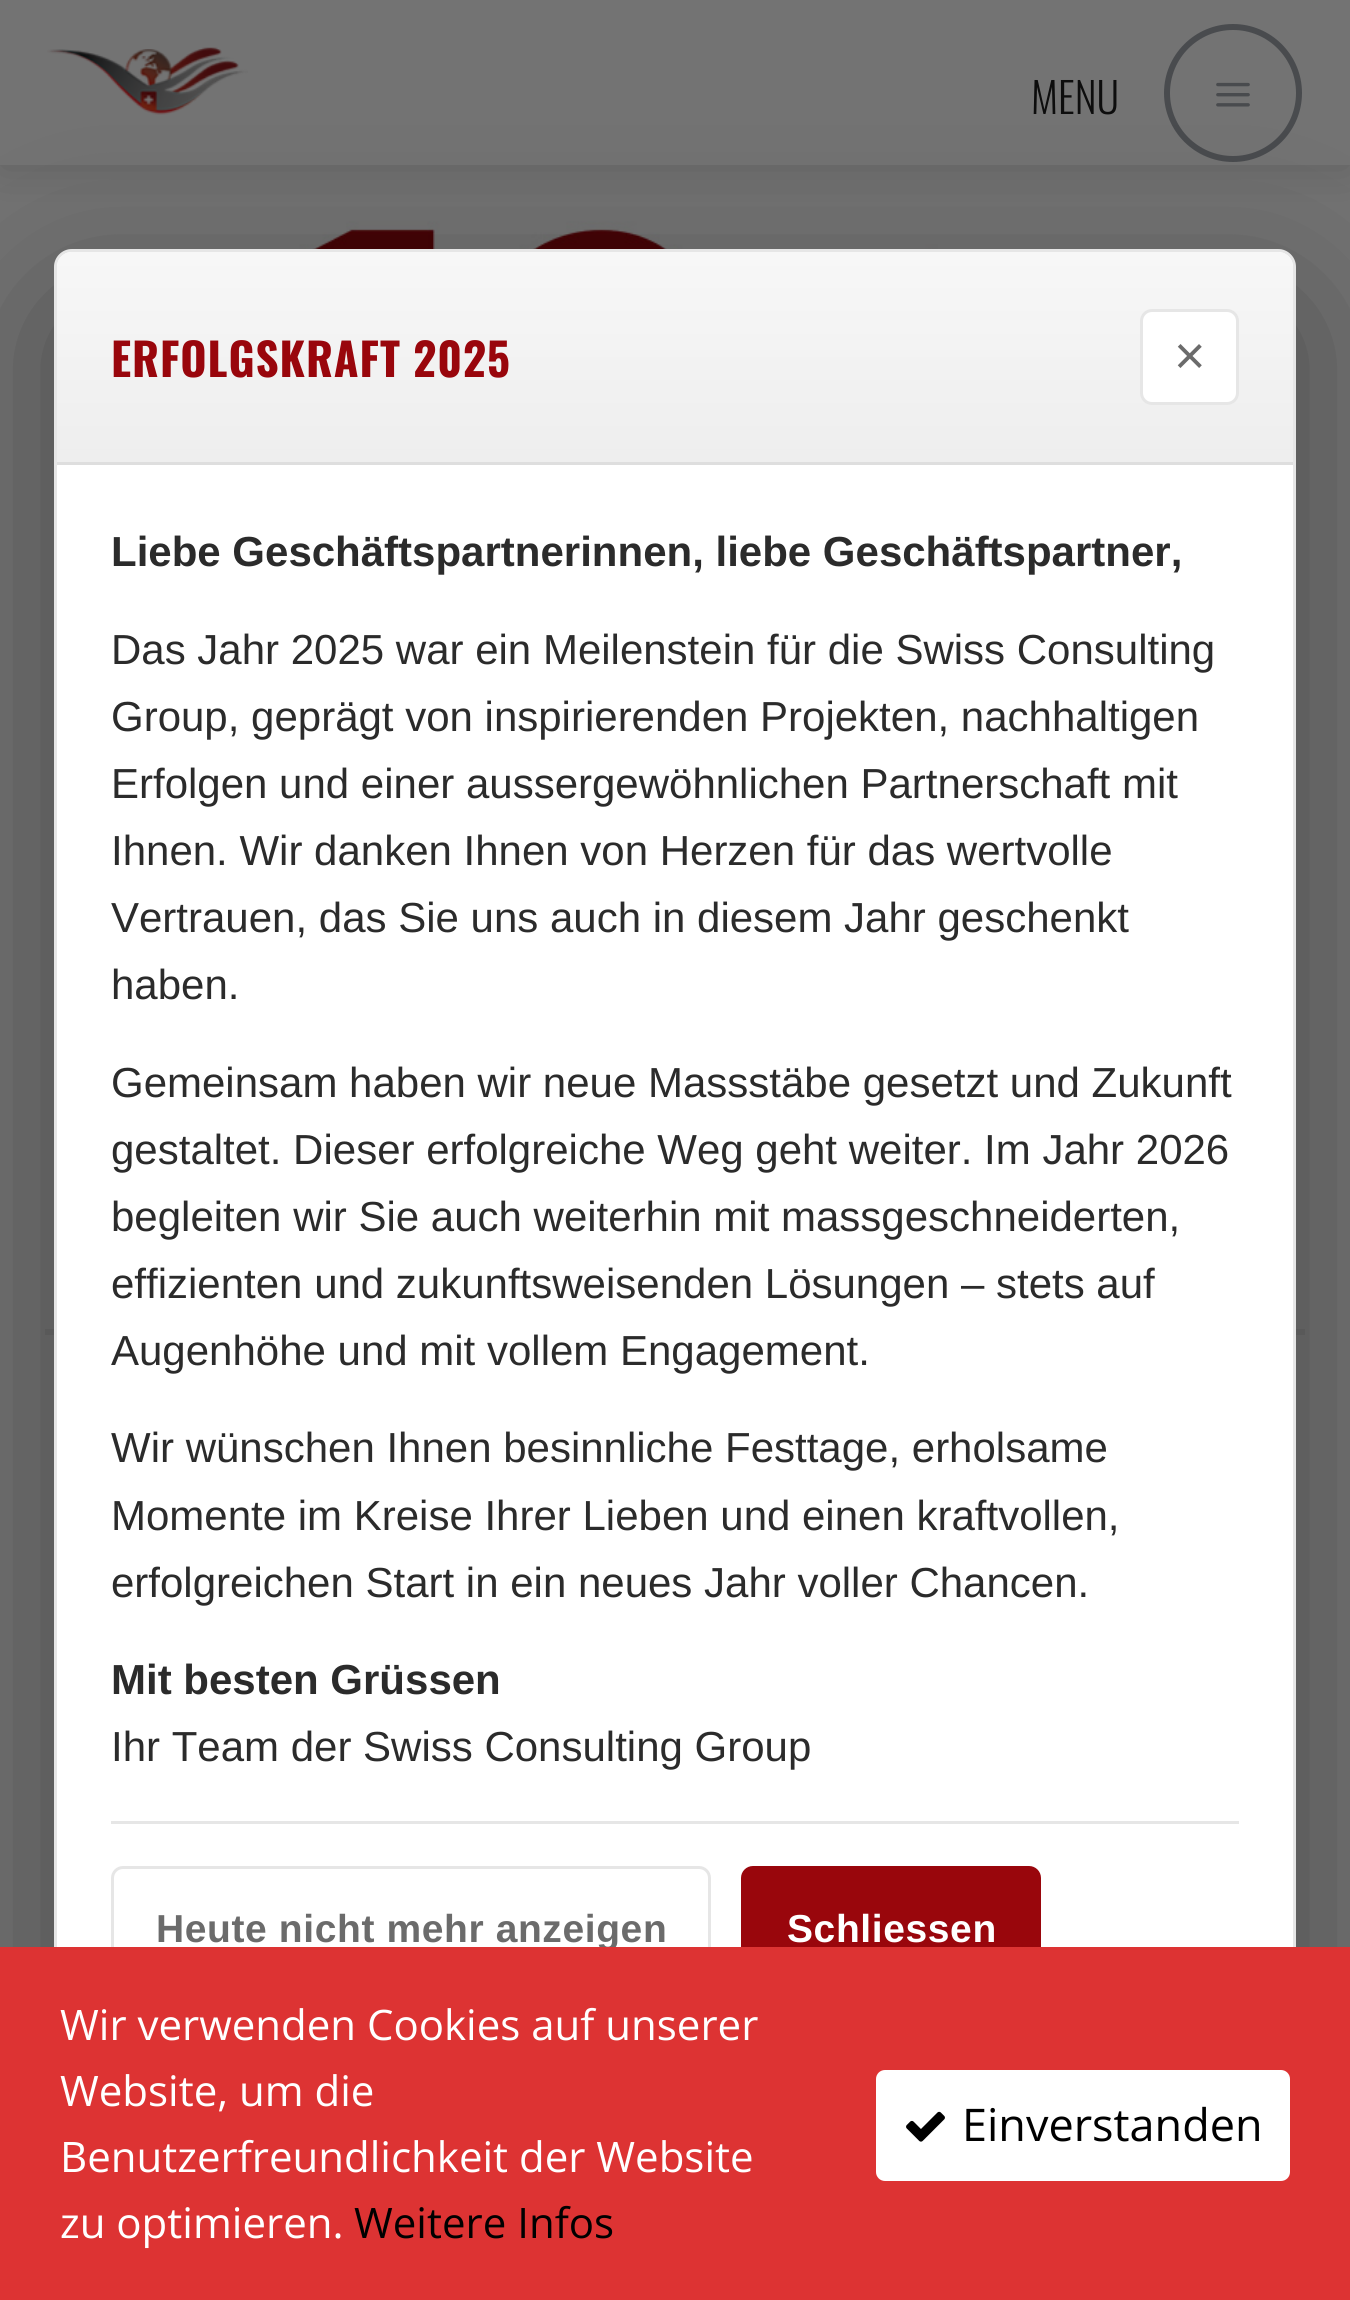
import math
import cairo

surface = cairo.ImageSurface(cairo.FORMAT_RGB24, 1350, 2300)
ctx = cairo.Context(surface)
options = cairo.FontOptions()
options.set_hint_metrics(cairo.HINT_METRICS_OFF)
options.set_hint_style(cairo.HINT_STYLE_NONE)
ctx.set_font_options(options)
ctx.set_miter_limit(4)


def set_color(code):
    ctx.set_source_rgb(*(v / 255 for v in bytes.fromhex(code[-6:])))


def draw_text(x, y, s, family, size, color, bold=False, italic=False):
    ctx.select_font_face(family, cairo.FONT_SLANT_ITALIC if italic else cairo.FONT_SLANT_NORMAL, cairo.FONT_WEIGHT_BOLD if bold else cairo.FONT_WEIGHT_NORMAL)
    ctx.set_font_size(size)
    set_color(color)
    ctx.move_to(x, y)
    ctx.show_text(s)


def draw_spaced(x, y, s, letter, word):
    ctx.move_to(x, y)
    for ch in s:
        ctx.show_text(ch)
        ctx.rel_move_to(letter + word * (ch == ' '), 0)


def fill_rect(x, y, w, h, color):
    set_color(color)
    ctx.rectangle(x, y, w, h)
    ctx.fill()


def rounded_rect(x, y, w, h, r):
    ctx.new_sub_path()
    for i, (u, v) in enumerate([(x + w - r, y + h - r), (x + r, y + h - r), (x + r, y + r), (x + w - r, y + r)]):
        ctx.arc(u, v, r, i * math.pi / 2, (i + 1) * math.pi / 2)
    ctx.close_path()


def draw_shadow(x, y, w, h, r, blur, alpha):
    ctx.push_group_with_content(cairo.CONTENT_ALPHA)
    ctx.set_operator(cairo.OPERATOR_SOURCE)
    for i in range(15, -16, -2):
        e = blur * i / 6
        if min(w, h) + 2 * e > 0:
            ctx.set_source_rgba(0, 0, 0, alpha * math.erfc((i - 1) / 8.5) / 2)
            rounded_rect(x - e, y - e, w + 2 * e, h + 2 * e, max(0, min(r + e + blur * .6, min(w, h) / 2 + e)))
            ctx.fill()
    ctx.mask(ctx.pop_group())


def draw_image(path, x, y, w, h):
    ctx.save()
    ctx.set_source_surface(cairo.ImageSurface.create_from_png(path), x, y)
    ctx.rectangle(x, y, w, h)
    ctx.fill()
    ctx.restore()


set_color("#737373")
ctx.paint()
draw_image("assets/img3.png", 242, 221, 868, 28)
set_color("#000000")
draw_shadow(0, 3, 1350, 165, 0, 22.5, 0.15)
fill_rect(0, 0, 1350, 165, "#737373")
draw_image("assets/img1.png", 47, 47, 201, 68)
draw_text(1031, 114, "MENU", "Oswald Light", 42, "#0d0d0d")
ctx.new_path()
ctx.arc(1233, 93, 66, 0, 2 * math.pi)
set_color("#494b4e")
ctx.set_line_width(6)
ctx.stroke()
draw_image("assets/img2.png", 1216, 82, 34, 25)
fill_rect(45, 1329, 1260, 6, "#6b6b6b")
set_color("#000000")
draw_shadow(54, 303, 1242, 1803, 18, 82.5, 0.35)
set_color("#ffffff")
rounded_rect(54, 249, 1242, 1803, 18)
ctx.fill()
rounded_rect(55.5, 250.5, 1239, 1800, 16.5)
ctx.set_source_rgba(0, 0, 0, 0.1)
ctx.set_line_width(3)
ctx.stroke()
gradient = cairo.LinearGradient(675, 252, 675, 462)
gradient.add_color_stop_rgba(0, 0.969, 0.969, 0.969, 1)
gradient.add_color_stop_rgba(1, 0.933, 0.933, 0.933, 1)
ctx.set_source(gradient)
ctx.new_path()
ctx.move_to(72, 252)
ctx.line_to(1278, 252)
ctx.curve_to(1286.5, 252, 1293, 258.5, 1293, 267)
ctx.line_to(1293, 462)
ctx.line_to(57, 462)
ctx.line_to(57, 267)
ctx.curve_to(57, 258.5, 63.5, 252, 72, 252)
ctx.close_path()
ctx.fill()
fill_rect(57, 462, 1236, 3, "#dedede")
ctx.select_font_face("Oswald", cairo.FONT_SLANT_NORMAL, cairo.FONT_WEIGHT_BOLD)
ctx.set_font_size(45)
set_color("#99060c")
draw_spaced(111, 377, "ERFOLGSKRAFT 2025", 0.9, 0)
set_color("#ffffff")
rounded_rect(1140, 309, 99, 96, 12)
ctx.fill()
rounded_rect(1141.5, 310.5, 96, 93, 10.5)
ctx.set_source_rgba(0, 0, 0, 0.1)
ctx.stroke()
draw_text(1174, 374, "×", "Liberation Sans", 54, "#6b6b6b")
draw_text(111, 566, "Liebe Geschäftspartnerinnen, liebe Geschäftspartner,", "Liberation Sans", 42, "#2b2b2b", bold=True)
draw_text(111, 664, "Das Jahr 2025 war ein Meilenstein für die Swiss Consulting", "Liberation Sans", 42, "#2b2b2b")
draw_text(111, 731, "Group, geprägt von inspirierenden Projekten, nachhaltigen", "Liberation Sans", 42, "#2b2b2b")
draw_text(111, 798, "Erfolgen und einer aussergewöhnlichen Partnerschaft mit", "Liberation Sans", 42, "#2b2b2b")
draw_text(111, 865, "Ihnen. Wir danken Ihnen von Herzen für das wertvolle", "Liberation Sans", 42, "#2b2b2b")
draw_text(111, 932, "Vertrauen, das Sie uns auch in diesem Jahr geschenkt", "Liberation Sans", 42, "#2b2b2b")
draw_text(111, 999, "haben.", "Liberation Sans", 42, "#2b2b2b")
draw_text(111, 1097, "Gemeinsam haben wir neue Massstäbe gesetzt und Zukunft", "Liberation Sans", 42, "#2b2b2b")
draw_text(111, 1164, "gestaltet. Dieser erfolgreiche Weg geht weiter. Im Jahr 2026", "Liberation Sans", 42, "#2b2b2b")
draw_text(111, 1231, "begleiten wir Sie auch weiterhin mit massgeschneiderten,", "Liberation Sans", 42, "#2b2b2b")
draw_text(111, 1298, "effizienten und zukunftsweisenden Lösungen – stets auf", "Liberation Sans", 42, "#2b2b2b")
draw_text(111, 1365, "Augenhöhe und mit vollem Engagement.", "Liberation Sans", 42, "#2b2b2b")
draw_text(111, 1462, "Wir wünschen Ihnen besinnliche Festtage, erholsame", "Liberation Sans", 42, "#2b2b2b")
draw_text(111, 1530, "Momente im Kreise Ihrer Lieben und einen kraftvollen,", "Liberation Sans", 42, "#2b2b2b")
draw_text(111, 1597, "erfolgreichen Start in ein neues Jahr voller Chancen.", "Liberation Sans", 42, "#2b2b2b")
draw_text(111, 1694, "Mit besten Grüssen", "Liberation Sans", 42, "#2b2b2b", bold=True)
draw_text(111, 1761, "Ihr Team der Swiss Consulting Group", "Liberation Sans", 42, "#2b2b2b")
fill_rect(111, 1821, 1128, 3, "#e6e6e6")
rounded_rect(112.5, 1867.5, 597, 126, 10.5)
ctx.stroke()
ctx.select_font_face("Liberation Sans", cairo.FONT_SLANT_NORMAL, cairo.FONT_WEIGHT_BOLD)
ctx.set_font_size(39)
set_color("#6b6b6b")
draw_spaced(156, 1942, "Heute nicht mehr anzeigen", 0.6, 0)
set_color("#99060c")
rounded_rect(742.5, 1867.5, 297, 126, 10.5)
ctx.fill_preserve()
ctx.stroke()
set_color("#ffffff")
draw_spaced(787, 1942, "Schliessen", 0.6, 0)
fill_rect(0, 1947, 1350, 353, "#dd3333")
draw_text(60, 2040, "Wir verwenden Cookies auf unserer", "Open Sans", 42, "#ffffff")
draw_text(60, 2106, "Website, um die", "Open Sans", 42, "#ffffff")
draw_text(60, 2172, "Benutzerfreundlichkeit der Website", "Open Sans", 42, "#ffffff")
draw_text(60, 2238, "zu optimieren.", "Open Sans", 42, "#ffffff")
draw_text(354, 2238, "Weitere Infos", "Open Sans", 42, "#000000")
set_color("#ffffff")
rounded_rect(876, 2070, 414, 111, 9)
ctx.fill()
draw_image("assets/img4.png", 906, 2111, 39, 31)
draw_text(962, 2141, "Einverstanden", "Open Sans", 45, "#000000")
surface.write_to_png("output.png")
